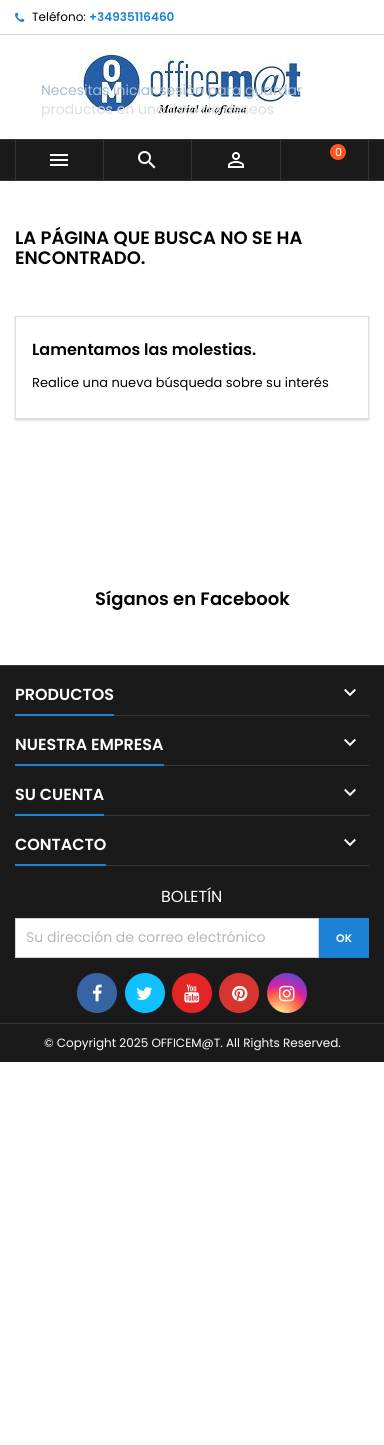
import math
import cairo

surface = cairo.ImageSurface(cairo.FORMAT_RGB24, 384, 1445)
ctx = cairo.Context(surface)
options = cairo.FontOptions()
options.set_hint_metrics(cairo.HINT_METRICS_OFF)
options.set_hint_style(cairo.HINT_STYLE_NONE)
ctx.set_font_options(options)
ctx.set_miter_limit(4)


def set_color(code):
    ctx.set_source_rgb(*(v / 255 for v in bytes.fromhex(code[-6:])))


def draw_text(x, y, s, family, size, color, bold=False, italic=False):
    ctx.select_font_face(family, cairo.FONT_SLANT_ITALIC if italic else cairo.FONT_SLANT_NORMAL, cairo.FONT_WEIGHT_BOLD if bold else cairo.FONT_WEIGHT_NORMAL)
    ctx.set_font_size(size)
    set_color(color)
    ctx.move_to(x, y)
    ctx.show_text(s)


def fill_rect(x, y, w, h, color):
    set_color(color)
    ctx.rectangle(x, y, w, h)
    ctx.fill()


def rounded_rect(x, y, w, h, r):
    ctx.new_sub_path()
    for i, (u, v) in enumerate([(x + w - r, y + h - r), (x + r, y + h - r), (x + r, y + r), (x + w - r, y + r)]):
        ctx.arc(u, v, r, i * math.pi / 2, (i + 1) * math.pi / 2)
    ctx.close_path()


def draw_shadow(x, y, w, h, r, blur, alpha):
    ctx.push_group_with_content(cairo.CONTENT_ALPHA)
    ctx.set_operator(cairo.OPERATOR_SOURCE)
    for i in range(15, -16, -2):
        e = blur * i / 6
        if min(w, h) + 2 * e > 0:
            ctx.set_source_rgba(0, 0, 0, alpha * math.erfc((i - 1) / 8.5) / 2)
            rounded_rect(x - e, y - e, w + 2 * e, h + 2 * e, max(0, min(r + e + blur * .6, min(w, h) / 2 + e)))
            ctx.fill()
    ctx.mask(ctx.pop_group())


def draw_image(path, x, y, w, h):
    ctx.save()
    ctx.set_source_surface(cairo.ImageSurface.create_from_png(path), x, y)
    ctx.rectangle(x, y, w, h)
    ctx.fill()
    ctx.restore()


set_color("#ffffff")
ctx.paint()
fill_rect(0, 34, 384, 1, "#d6d4d4")
draw_image("assets/img1.png", 15, 12, 10, 10)
draw_text(32, 21, "Teléfono:", "Poppins", 12, "#000000")
draw_text(89, 21, "+34935116460", "Poppins SemiBold", 12, "#1b82d6")
draw_image("assets/img2.png", 79, 49, 224, 72)
fill_rect(0, 140, 384, 40, "#1b1a1b")
fill_rect(0, 139, 384, 1, "#363636")
fill_rect(0, 180, 384, 1, "#363636")
fill_rect(103, 140, 1, 40, "#363636")
fill_rect(15, 140, 1, 40, "#363636")
draw_image("assets/img3.png", 50, 154, 18, 12)
fill_rect(191, 140, 1, 40, "#363636")
draw_image("assets/img4.png", 138, 151, 18, 18)
fill_rect(280, 140, 1, 40, "#363636")
draw_image("assets/img5.png", 228, 152, 16, 16)
fill_rect(368, 140, 1, 40, "#363636")
set_color("#ff5722")
ctx.arc(338, 152, 8, 0, 2 * math.pi)
ctx.fill()
draw_text(335, 156, "0", "Poppins", 11, "#ffffff")
draw_text(15, 244, "LA PÁGINA QUE BUSCA NO SE HA", "Poppins SemiBold", 18, "#000000")
draw_text(15, 264, "ENCONTRADO.", "Poppins SemiBold", 18, "#000000")
ctx.save()
ctx.set_fill_rule(cairo.FILL_RULE_EVEN_ODD)
ctx.new_path()
ctx.move_to(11, 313)
ctx.line_to(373, 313)
ctx.line_to(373, 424)
ctx.line_to(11, 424)
ctx.close_path()
ctx.move_to(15, 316)
ctx.line_to(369, 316)
ctx.line_to(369, 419)
ctx.line_to(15, 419)
ctx.close_path()
ctx.clip()
set_color("#000000")
draw_shadow(15, 317, 354, 103, 0, 1, 0.2)
ctx.restore()
ctx.rectangle(15.5, 316.5, 353, 102)
set_color("#dfdfdf")
ctx.set_line_width(1)
ctx.stroke()
draw_text(32, 355, "Lamentamos las molestias.", "Poppins SemiBold", 16, "#000000")
draw_text(32, 387, "Realice una nueva búsqueda sobre su interés", "Poppins", 13, "#000000")
draw_text(95, 605, "Síganos en Facebook", "Poppins SemiBold", 18, "#000000")
fill_rect(0, 666, 384, 357, "#1b1a1b")
fill_rect(0, 665, 384, 1, "#363636")
fill_rect(114, 715, 255, 1, "#363636")
fill_rect(15, 714, 99, 2, "#1b82d6")
draw_text(15, 700, "PRODUCTOS", "Poppins SemiBold", 16, "#ffffff")
draw_image("assets/img6.png", 344, 688, 12, 9)
fill_rect(164, 765, 205, 1, "#363636")
fill_rect(15, 764, 149, 2, "#1b82d6")
draw_text(15, 750, "NUESTRA EMPRESA", "Poppins SemiBold", 16, "#ffffff")
draw_image("assets/img6.png", 344, 738, 12, 9)
fill_rect(104, 815, 265, 1, "#363636")
fill_rect(15, 814, 89, 2, "#1b82d6")
draw_text(15, 800, "SU CUENTA", "Poppins SemiBold", 16, "#ffffff")
draw_image("assets/img6.png", 344, 788, 12, 9)
fill_rect(106, 865, 263, 1, "#363636")
fill_rect(15, 864, 91, 2, "#1b82d6")
draw_text(15, 850, "CONTACTO", "Poppins SemiBold", 16, "#ffffff")
draw_image("assets/img6.png", 344, 838, 12, 9)
draw_text(161, 902, "BOLETÍN", "Poppins", 16, "#ffffff")
ctx.rectangle(15.5, 918.5, 303, 39)
ctx.fill_preserve()
set_color("#d6d4d4")
ctx.stroke()
draw_text(26, 942, "Su dirección de correo electrónico", "Poppins", 14, "#b7b7b7")
fill_rect(319, 918, 50, 40, "#1b82d6")
draw_text(336, 942, "OK", "Poppins SemiBold", 11, "#ffffff")
set_color("#3765a3")
ctx.new_path()
ctx.arc(97, 993, 20, 0, 2 * math.pi)
ctx.fill()
draw_image("assets/img7.png", 92, 984, 10, 18)
set_color("#11c1ff")
ctx.arc(145, 993, 20, 0, 2 * math.pi)
ctx.fill()
draw_image("assets/img8.png", 136, 987, 17, 13)
set_color("#e42526")
ctx.arc(192, 993, 20, 0, 2 * math.pi)
ctx.fill()
draw_image("assets/img9.png", 184, 984, 16, 19)
set_color("#d73532")
ctx.arc(239, 993, 20, 0, 2 * math.pi)
ctx.fill()
draw_image("assets/img10.png", 232, 985, 16, 17)
gradient = cairo.RadialGradient(279, 1016, 0, 279, 1016, 51)
gradient.add_color_stop_rgba(0, 0.992, 0.957, 0.592, 1)
gradient.add_color_stop_rgba(0.05, 0.992, 0.957, 0.592, 1)
gradient.add_color_stop_rgba(0.45, 0.992, 0.349, 0.286, 1)
gradient.add_color_stop_rgba(0.6, 0.839, 0.141, 0.624, 1)
gradient.add_color_stop_rgba(1, 0.157, 0.353, 0.922, 1)
ctx.set_source(gradient)
ctx.arc(287, 993, 20, 0, 2 * math.pi)
ctx.fill()
draw_image("assets/img11.png", 279, 985, 16, 17)
fill_rect(0, 1024, 384, 38, "#1b1a1b")
fill_rect(0, 1023, 384, 1, "#363636")
draw_text(44, 1047, "© Copyright 2025 OFFICEM@T. All Rights Reserved.", "Poppins", 12, "#ffffff")
draw_text(41, 95, "Necesitas iniciar sesión para guardar", "Poppins", 14, "#a6bbd1")
draw_text(41, 114, "productos en una lista de deseos", "Poppins", 14, "#dcdfe2")
surface.write_to_png("output.png")
